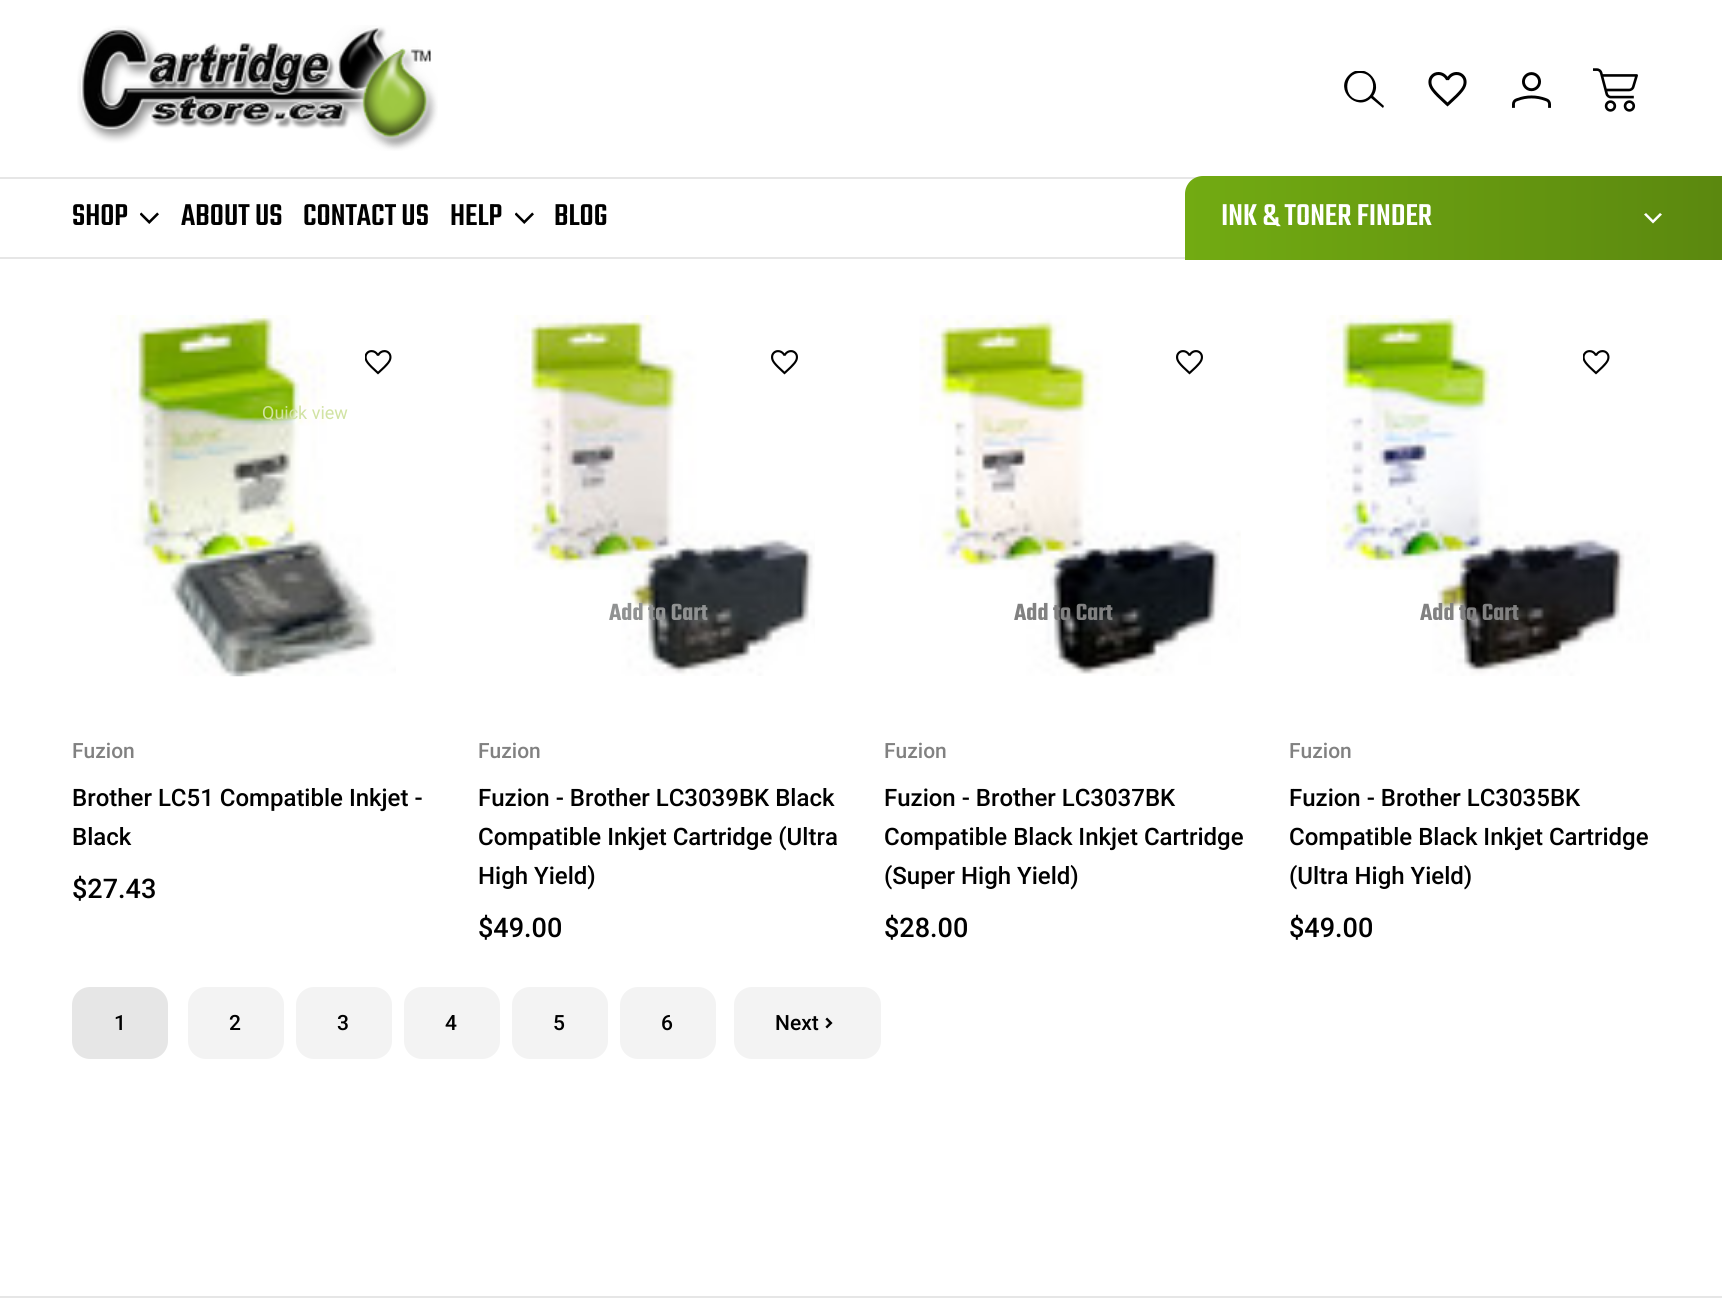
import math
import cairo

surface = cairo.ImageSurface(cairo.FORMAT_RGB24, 1722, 1298)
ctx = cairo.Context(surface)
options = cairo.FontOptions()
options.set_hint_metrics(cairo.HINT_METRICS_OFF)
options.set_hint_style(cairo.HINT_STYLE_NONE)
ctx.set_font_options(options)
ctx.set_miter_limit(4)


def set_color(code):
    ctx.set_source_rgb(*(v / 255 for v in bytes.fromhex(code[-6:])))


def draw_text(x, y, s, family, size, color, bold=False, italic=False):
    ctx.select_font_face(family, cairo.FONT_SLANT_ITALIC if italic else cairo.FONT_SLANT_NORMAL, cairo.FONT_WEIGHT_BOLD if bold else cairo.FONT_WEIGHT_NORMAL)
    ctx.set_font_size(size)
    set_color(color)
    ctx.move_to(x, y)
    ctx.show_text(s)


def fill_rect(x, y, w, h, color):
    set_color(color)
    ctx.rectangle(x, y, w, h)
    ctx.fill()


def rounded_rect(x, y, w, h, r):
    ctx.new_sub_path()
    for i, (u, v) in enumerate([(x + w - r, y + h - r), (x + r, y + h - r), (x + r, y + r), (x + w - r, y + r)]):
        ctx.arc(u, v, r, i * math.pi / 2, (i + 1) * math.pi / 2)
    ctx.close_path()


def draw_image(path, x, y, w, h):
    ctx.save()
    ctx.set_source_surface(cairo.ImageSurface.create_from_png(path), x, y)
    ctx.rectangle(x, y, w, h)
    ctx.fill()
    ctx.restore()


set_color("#ffffff")
ctx.paint()
fill_rect(0, 257, 1185, 2, "#e6e6e6")
draw_image("assets/img1.png", 77, 25, 361, 126)
ctx.save()
ctx.rectangle(1344, 71, 41, 37)
ctx.clip()
set_color("#000000")
ctx.new_path()
ctx.move_to(1384, 106)
ctx.line_to(1373, 96)
ctx.curve_to(1384, 81, 1363, 61, 1349, 75)
ctx.curve_to(1334, 90, 1357, 112, 1371, 98)
ctx.line_to(1383, 108)
ctx.close_path()
ctx.move_to(1360, 100)
ctx.curve_to(1343, 100, 1343, 73, 1360, 73)
ctx.curve_to(1378, 73, 1377, 100, 1360, 100)
ctx.close_path()
ctx.fill()
ctx.restore()
draw_image("assets/img2.png", 1428, 72, 39, 35)
draw_image("assets/img3.png", 1512, 72, 39, 36)
draw_image("assets/img4.png", 1593, 68, 45, 44)
fill_rect(0, 177, 1197, 2, "#e6e6e6")
draw_text(72, 225, "SHOP", "Teko Medium", 33, "#000000")
draw_image("assets/img5.png", 140, 212, 19, 12)
draw_text(181, 225, "ABOUT US", "Teko Medium", 33, "#000000")
draw_text(303, 225, "CONTACT US", "Teko Medium", 33, "#000000")
draw_text(450, 225, "HELP", "Teko Medium", 33, "#000000")
draw_image("assets/img5.png", 515, 212, 19, 12)
draw_text(554, 225, "BLOG", "Teko Medium", 33, "#000000")
gradient = cairo.LinearGradient(1185, 218, 1722, 218)
gradient.add_color_stop_rgba(0, 0.447, 0.671, 0.071, 1)
gradient.add_color_stop_rgba(1, 0.357, 0.533, 0.059, 1)
ctx.set_source(gradient)
ctx.new_path()
ctx.move_to(1203, 176)
ctx.line_to(1722, 176)
ctx.line_to(1722, 260)
ctx.line_to(1185, 260)
ctx.line_to(1185, 194)
ctx.curve_to(1185, 184, 1193, 176, 1203, 176)
ctx.close_path()
ctx.fill()
draw_text(1221, 225, "INK & TONER FINDER", "Teko Medium", 33, "#ffffff")
ctx.new_path()
ctx.move_to(1653, 223.5)
ctx.line_to(1644, 214.5)
ctx.line_to(1646, 213)
ctx.line_to(1653, 220)
ctx.line_to(1660, 213)
ctx.line_to(1662, 214.5)
ctx.close_path()
ctx.fill()
draw_image("assets/img6.png", 110, 315, 286, 362)
draw_image("assets/img7.png", 365, 350, 27, 25)
draw_text(262, 419, "Quick view", "Roboto", 18, "#d1e3a3")
draw_text(72, 758, "Fuzion", "Roboto Medium", 21, "#818181")
draw_text(72, 806, "Brother LC51 Compatible Inkjet -", "Roboto Medium", 24, "#000000")
draw_text(72, 845, "Black", "Roboto Medium", 24, "#000000")
draw_text(72, 898, "$27.43", "Roboto Medium", 27, "#000000")
draw_image("assets/img8.png", 514, 315, 301, 361)
draw_image("assets/img9.png", 771, 350, 27, 25)
draw_text(609, 620, "Add to Cart", "Teko SemiBold", 25.5, "#909292")
draw_text(478, 758, "Fuzion", "Roboto Medium", 21, "#818181")
draw_text(478, 806, "Fuzion - Brother LC3039BK Black", "Roboto Medium", 24, "#000000")
draw_text(478, 845, "Compatible Inkjet Cartridge (Ultra", "Roboto Medium", 24, "#000000")
draw_text(478, 884, "High Yield)", "Roboto Medium", 24, "#000000")
draw_text(478, 937, "$49.00", "Roboto Medium", 27, "#000000")
draw_image("assets/img10.png", 919, 315, 322, 361)
draw_image("assets/img9.png", 1176, 350, 27, 25)
draw_text(1014, 620, "Add to Cart", "Teko SemiBold", 25.5, "#818181")
draw_text(884, 758, "Fuzion", "Roboto Medium", 21, "#818181")
draw_text(884, 806, "Fuzion - Brother LC3037BK", "Roboto Medium", 24, "#000000")
draw_text(884, 845, "Compatible Black Inkjet Cartridge", "Roboto Medium", 24, "#000000")
draw_text(884, 884, "(Super High Yield)", "Roboto Medium", 24, "#000000")
draw_text(884, 937, "$28.00", "Roboto Medium", 27, "#000000")
draw_image("assets/img11.png", 1326, 315, 324, 361)
draw_image("assets/img7.png", 1583, 350, 27, 25)
draw_text(1420, 620, "Add to Cart", "Teko SemiBold", 25.5, "#818181")
draw_text(1289, 758, "Fuzion", "Roboto Medium", 21, "#818181")
draw_text(1289, 806, "Fuzion - Brother LC3035BK", "Roboto Medium", 24, "#000000")
draw_text(1289, 845, "Compatible Black Inkjet Cartridge", "Roboto Medium", 24, "#000000")
draw_text(1289, 884, "(Ultra High Yield)", "Roboto Medium", 24, "#000000")
draw_text(1289, 937, "$49.00", "Roboto Medium", 27, "#000000")
set_color("#e6e6e6")
rounded_rect(72, 987, 96, 72, 18)
ctx.fill()
draw_text(114, 1030, "1", "Roboto Medium", 21, "#000000")
set_color("#f3f3f3")
rounded_rect(188, 987, 96, 72, 18)
ctx.fill()
draw_text(229, 1030, "2", "Roboto Medium", 21, "#000000")
set_color("#f3f3f3")
rounded_rect(296, 987, 96, 72, 18)
ctx.fill()
draw_text(337, 1030, "3", "Roboto Medium", 21, "#000000")
set_color("#f3f3f3")
rounded_rect(404, 987, 96, 72, 18)
ctx.fill()
draw_text(445, 1030, "4", "Roboto Medium", 21, "#000000")
set_color("#f3f3f3")
rounded_rect(512, 987, 96, 72, 18)
ctx.fill()
draw_text(553, 1030, "5", "Roboto Medium", 21, "#000000")
set_color("#f3f3f3")
rounded_rect(620, 987, 96, 72, 18)
ctx.fill()
draw_text(661, 1030, "6", "Roboto Medium", 21, "#000000")
set_color("#f3f3f3")
rounded_rect(734, 987, 147, 72, 18)
ctx.fill()
draw_text(775, 1030, "Next", "Roboto Medium", 21, "#000000")
draw_image("assets/img12.png", 825, 1017, 8, 12)
fill_rect(0, 1296, 1722, 2, "#e6e6e6")
surface.write_to_png("output.png")
